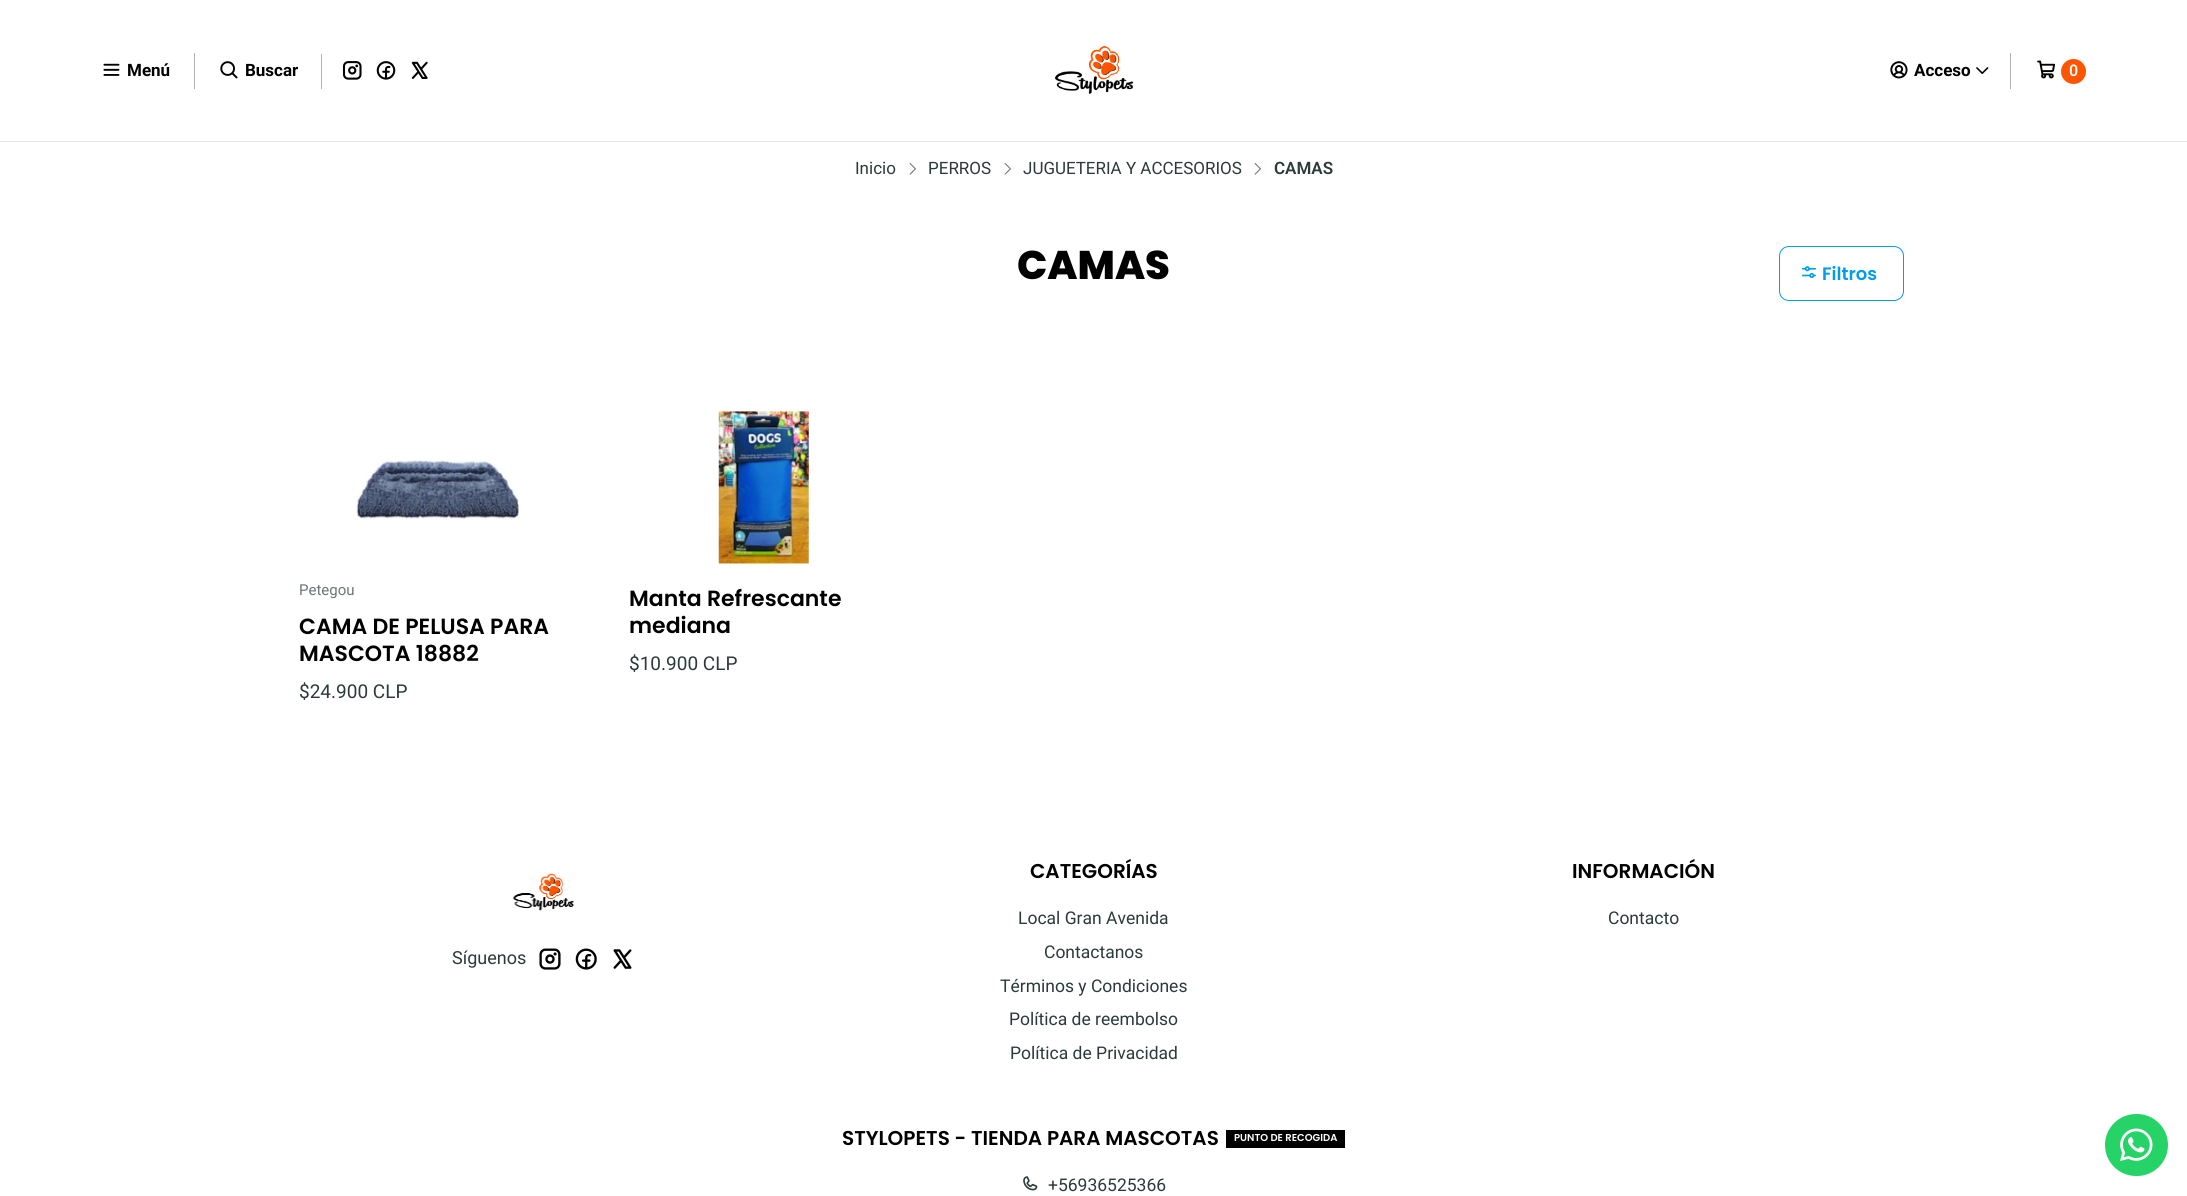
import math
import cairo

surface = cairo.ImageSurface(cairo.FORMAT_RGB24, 2187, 1196)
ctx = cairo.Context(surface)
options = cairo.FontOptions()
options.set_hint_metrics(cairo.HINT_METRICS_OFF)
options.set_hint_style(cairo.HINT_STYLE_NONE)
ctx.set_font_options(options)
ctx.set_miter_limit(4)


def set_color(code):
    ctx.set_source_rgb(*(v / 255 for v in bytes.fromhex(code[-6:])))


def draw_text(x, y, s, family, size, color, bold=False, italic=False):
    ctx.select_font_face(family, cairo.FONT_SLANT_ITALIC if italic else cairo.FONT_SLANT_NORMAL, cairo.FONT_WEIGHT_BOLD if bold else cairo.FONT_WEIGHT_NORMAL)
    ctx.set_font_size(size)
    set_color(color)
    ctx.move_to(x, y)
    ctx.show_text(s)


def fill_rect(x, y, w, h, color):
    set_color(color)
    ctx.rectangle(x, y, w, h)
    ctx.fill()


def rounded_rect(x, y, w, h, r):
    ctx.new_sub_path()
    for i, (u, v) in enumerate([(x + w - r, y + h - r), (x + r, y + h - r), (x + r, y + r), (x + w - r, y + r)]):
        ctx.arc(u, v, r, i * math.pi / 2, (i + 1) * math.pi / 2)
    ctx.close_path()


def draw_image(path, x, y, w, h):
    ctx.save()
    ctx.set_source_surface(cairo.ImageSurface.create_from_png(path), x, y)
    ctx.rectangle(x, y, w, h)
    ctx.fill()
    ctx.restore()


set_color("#ffffff")
ctx.paint()
fill_rect(0, 141, 2187, 1, "#e6e6e6")
draw_image("assets/img1.png", 103, 63, 17, 13)
draw_text(127, 76, "Menú", "Roboto", 17, "#010101", bold=True)
fill_rect(194, 53, 1, 36, "#b3b3b3")
draw_image("assets/img2.png", 220, 61, 18, 18)
draw_text(245, 76, "Buscar", "Roboto", 17, "#010101", bold=True)
fill_rect(321, 54, 1, 35, "#b3b3b3")
draw_image("assets/img3.png", 342, 61, 20, 19)
draw_image("assets/img4.png", 376, 61, 20, 19)
draw_image("assets/img5.png", 411, 61, 17, 18)
draw_image("assets/img6.png", 1054, 46, 80, 48)
fill_rect(2010, 53, 1, 36, "#b3b3b3")
draw_image("assets/img7.png", 1890, 61, 18, 18)
draw_text(1914, 76, "Acceso", "Roboto", 17, "#010101", bold=True)
draw_image("assets/img8.png", 1976, 67, 13, 7)
draw_image("assets/img9.png", 2037, 60, 18, 19)
set_color("#ff5500")
ctx.arc(2073.5, 71.5, 12.5, 0, 2 * math.pi)
ctx.fill()
draw_text(2069, 76, "0", "Roboto SemiBold", 16, "#ffffff")
draw_text(855, 174, "Inicio", "Roboto", 17, "#2d3a3a")
draw_image("assets/img10.png", 909, 163, 7, 12)
draw_text(928, 174, "PERROS", "Roboto", 17, "#2d3a3a")
draw_image("assets/img10.png", 1004, 163, 7, 12)
draw_text(1023, 174, "JUGUETERIA Y ACCESORIOS", "Roboto", 17, "#2d3a3a")
draw_image("assets/img10.png", 1254, 163, 7, 12)
draw_text(1274, 174, "CAMAS", "Roboto SemiBold", 17, "#2d3a3a")
draw_text(1017, 279, "CAMAS", "Poppins ExtraBold", 40, "#010101")
rounded_rect(1779.5, 246.5, 124, 54, 9.5)
set_color("#029de7")
ctx.set_line_width(1)
ctx.stroke()
draw_image("assets/img11.png", 1802, 266, 14, 12)
draw_text(1822, 280, "Filtros", "Poppins SemiBold", 18, "#029de7")
draw_image("assets/img12.png", 356, 460, 165, 59)
draw_text(299, 595, "Petegou", "Roboto", 15, "#6c7575")
draw_text(299, 634, "CAMA DE PELUSA PARA", "Poppins SemiBold", 22, "#010101")
draw_text(299, 661, "MASCOTA 18882", "Poppins SemiBold", 22, "#010101")
draw_text(299, 698, "$24.900 CLP", "Roboto", 19, "#2d3a3a")
draw_image("assets/img13.png", 718, 411, 91, 153)
draw_text(629, 606, "Manta Refrescante", "Poppins SemiBold", 22, "#010101")
draw_text(629, 633, "mediana", "Poppins SemiBold", 22, "#010101")
draw_text(629, 670, "$10.900 CLP", "Roboto", 19, "#2d3a3a")
draw_text(1030, 878, "CATEGORÍAS", "Poppins SemiBold", 20, "#010101")
draw_text(1018, 924, "Local Gran Avenida", "Roboto", 17.5, "#2d3a3a")
draw_text(1044, 958, "Contactanos", "Roboto", 17.5, "#2d3a3a")
draw_text(1000, 992, "Términos y Condiciones", "Roboto", 17.5, "#2d3a3a")
draw_text(1009, 1025, "Política de reembolso", "Roboto", 17.5, "#2d3a3a")
draw_text(1010, 1059, "Política de Privacidad", "Roboto", 17.5, "#2d3a3a")
draw_text(1572, 878, "INFORMACIÓN", "Poppins SemiBold", 20, "#010101")
draw_text(1608, 924, "Contacto", "Roboto", 17.5, "#2d3a3a")
draw_image("assets/img14.png", 513, 873, 62, 38)
draw_text(452, 964, "Síguenos", "Roboto", 18, "#2d3a3a")
draw_image("assets/img15.png", 539, 948, 22, 22)
draw_image("assets/img16.png", 575, 948, 22, 22)
draw_image("assets/img17.png", 613, 949, 19, 20)
draw_text(842, 1145, "STYLOPETS - TIENDA PARA MASCOTAS", "Poppins SemiBold", 20, "#010101")
fill_rect(1226, 1130, 119, 18, "#010101")
draw_text(1234, 1141, "PUNTO DE RECOGIDA", "Poppins SemiBold", 10, "#ffffff")
draw_image("assets/img18.png", 1023, 1176, 15, 15)
draw_text(1048, 1191, "+56936525366", "Roboto", 17.5, "#2d3a3a")
set_color("#25d366")
rounded_rect(2105, 1114, 63, 62, 31)
ctx.fill()
draw_image("assets/img19.png", 2120, 1128, 33, 33)
surface.write_to_png("output.png")
